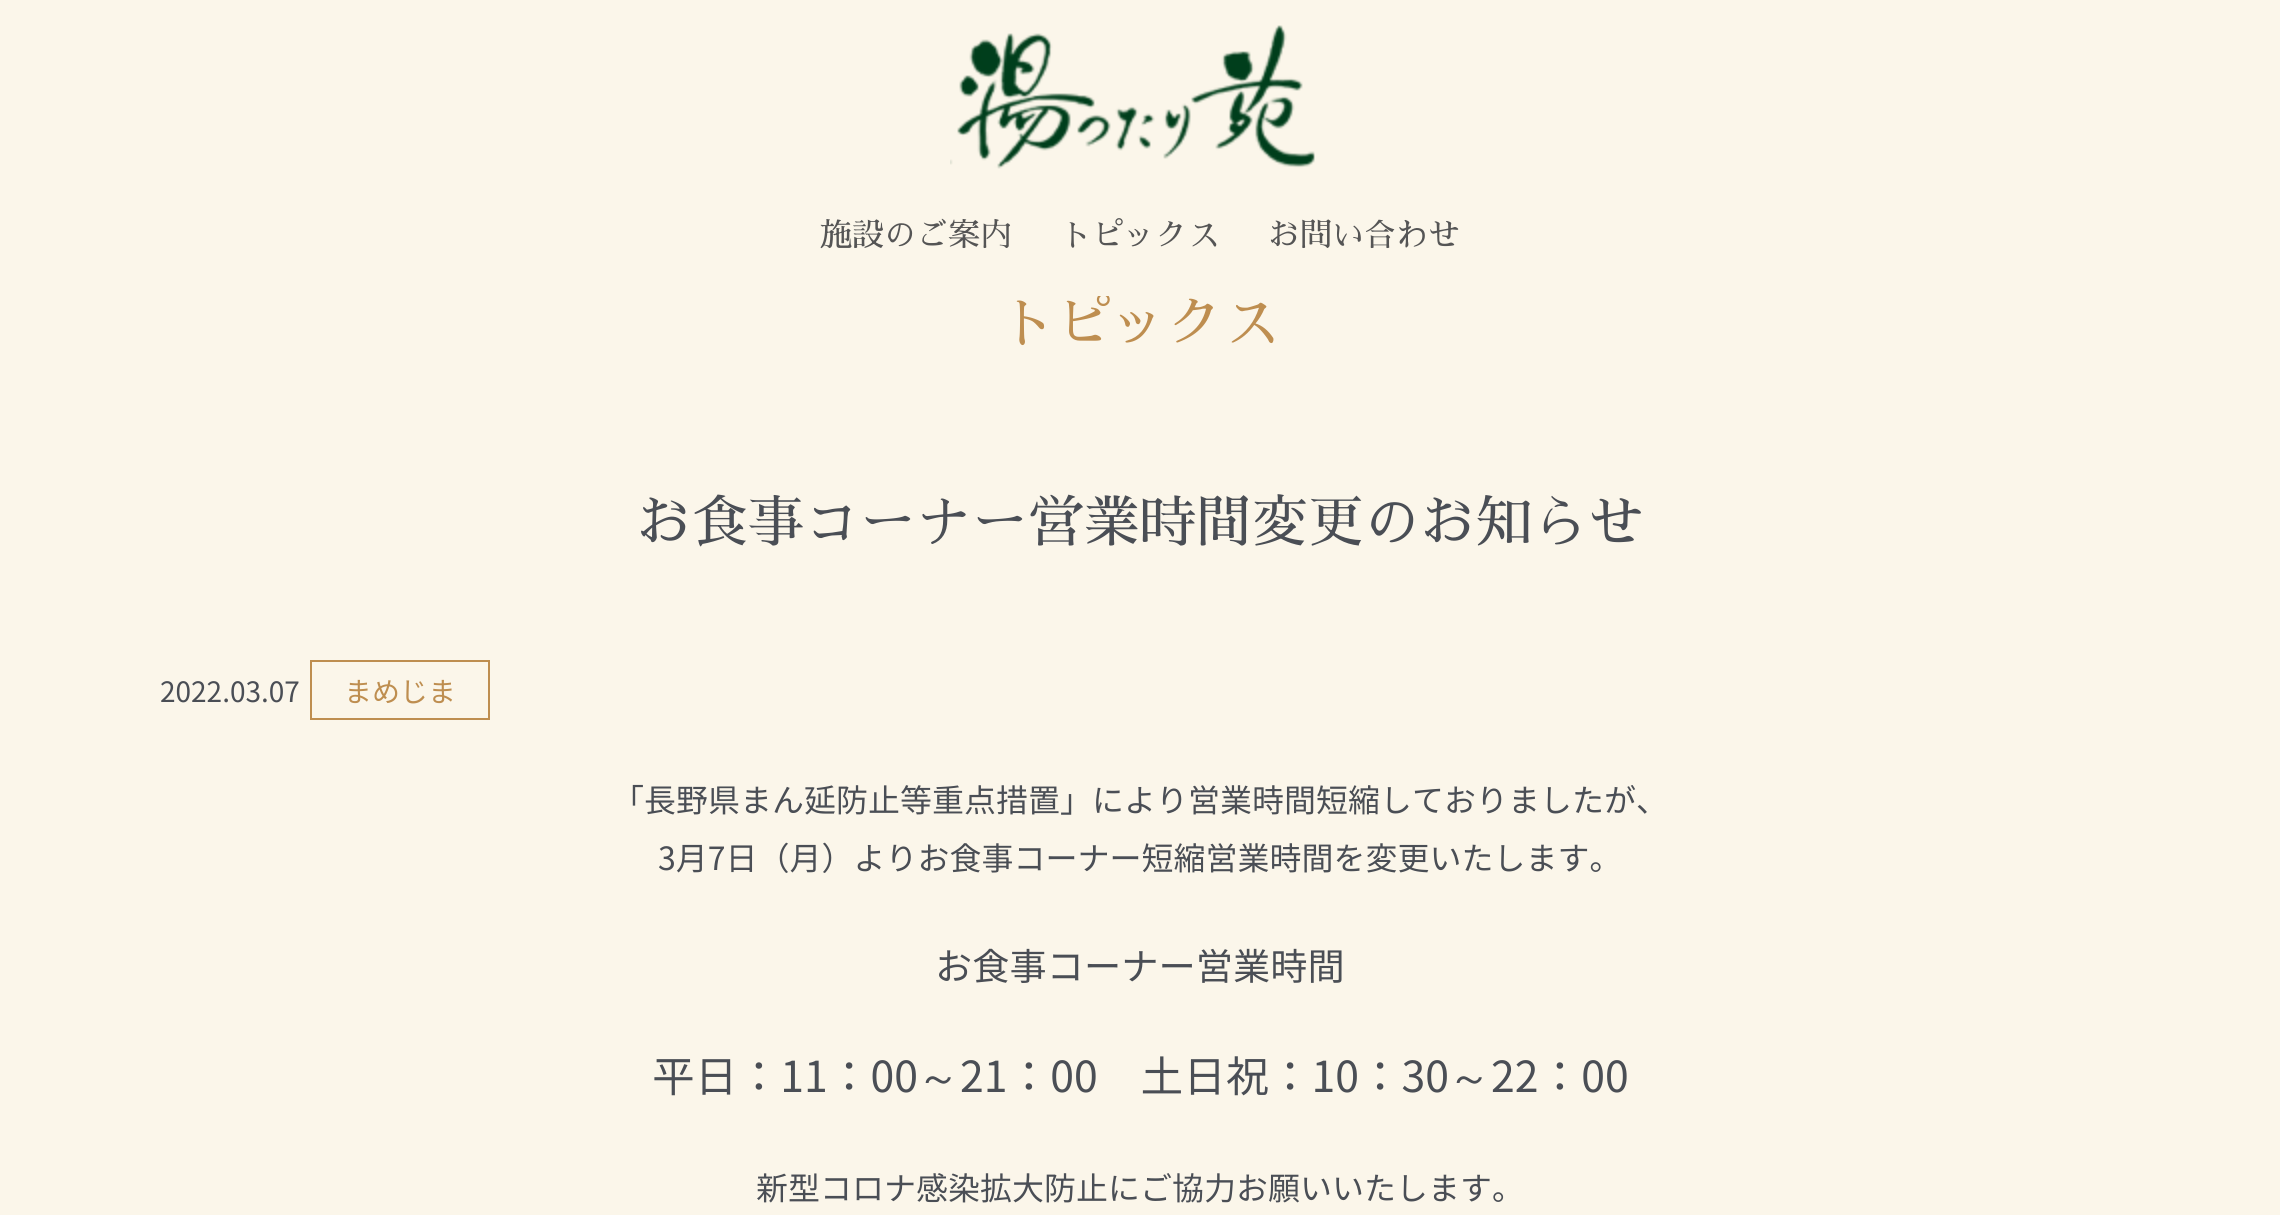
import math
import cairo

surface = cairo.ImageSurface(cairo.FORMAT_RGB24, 2280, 1215)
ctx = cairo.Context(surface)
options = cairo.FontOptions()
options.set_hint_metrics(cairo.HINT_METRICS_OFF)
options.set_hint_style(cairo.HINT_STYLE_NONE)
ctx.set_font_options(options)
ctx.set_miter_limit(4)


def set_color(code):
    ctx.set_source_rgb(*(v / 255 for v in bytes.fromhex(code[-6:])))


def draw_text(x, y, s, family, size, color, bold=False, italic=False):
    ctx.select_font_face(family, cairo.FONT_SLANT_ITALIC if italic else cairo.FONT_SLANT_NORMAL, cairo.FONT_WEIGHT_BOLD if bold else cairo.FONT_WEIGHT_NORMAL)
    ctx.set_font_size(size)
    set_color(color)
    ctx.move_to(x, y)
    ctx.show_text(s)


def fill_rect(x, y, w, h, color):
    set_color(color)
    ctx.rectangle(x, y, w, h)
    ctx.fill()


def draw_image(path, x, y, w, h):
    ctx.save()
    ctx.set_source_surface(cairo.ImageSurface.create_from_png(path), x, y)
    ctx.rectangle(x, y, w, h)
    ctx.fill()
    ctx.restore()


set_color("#fbf6ea")
ctx.paint()
draw_image("assets/img1.png", 950, 25, 365, 144)
draw_text(1000, 342, "トピックス", "Sawarabi Mincho", 56, "#be8e50")
fill_rect(1098, 293, 11, 3, "#fbf6ea")
draw_text(820, 246, "施設のご案内", "Sawarabi Mincho", 32, "#555555")
draw_text(1060, 246, "トピックス", "Sawarabi Mincho", 32, "#555555")
draw_text(1268, 246, "お問い合わせ", "Sawarabi Mincho", 32, "#555555")
draw_text(636, 542, "お食事コーナー営業時間変更のお知らせ", "Sawarabi Mincho", 56, "#4a4e55")
draw_text(160, 702, "2022.03.07", "Noto Sans JP", 28, "#4a4e55")
ctx.rectangle(311, 661, 178, 58)
set_color("#be8e50")
ctx.stroke()
draw_text(344, 702, "まめじま", "Noto Sans JP", 28, "#be8e50")
draw_text(612, 812, "「長野県まん延防止等重点措置」により営業時間短縮しておりましたが、", "Noto Sans JP", 32, "#4a4e55")
draw_text(658, 870, "3月7日（月）よりお食事コーナー短縮営業時間を変更いたします。", "Noto Sans JP", 32, "#4a4e55")
draw_text(935, 980, "お食事コーナー営業時間", "Noto Sans JP", 37.25, "#4a4e55")
draw_text(652, 1092, "平日：11：00", "Noto Sans JP", 42.75, "#4a4e55")
draw_text(917, 1092, "～", "WenQuanYi Zen Hei Medium", 42.75, "#4a4e55")
draw_text(960, 1092, "21：00　土日祝：10：30", "Noto Sans JP", 42.75, "#4a4e55")
draw_text(1448, 1092, "～", "WenQuanYi Zen Hei Medium", 42.75, "#4a4e55")
draw_text(1491, 1092, "22：00", "Noto Sans JP", 42.75, "#4a4e55")
draw_text(756, 1200, "新型コロナ感染拡大防止にご協力お願いいたします。", "Noto Sans JP", 32, "#4a4e55")
surface.write_to_png("output.png")
